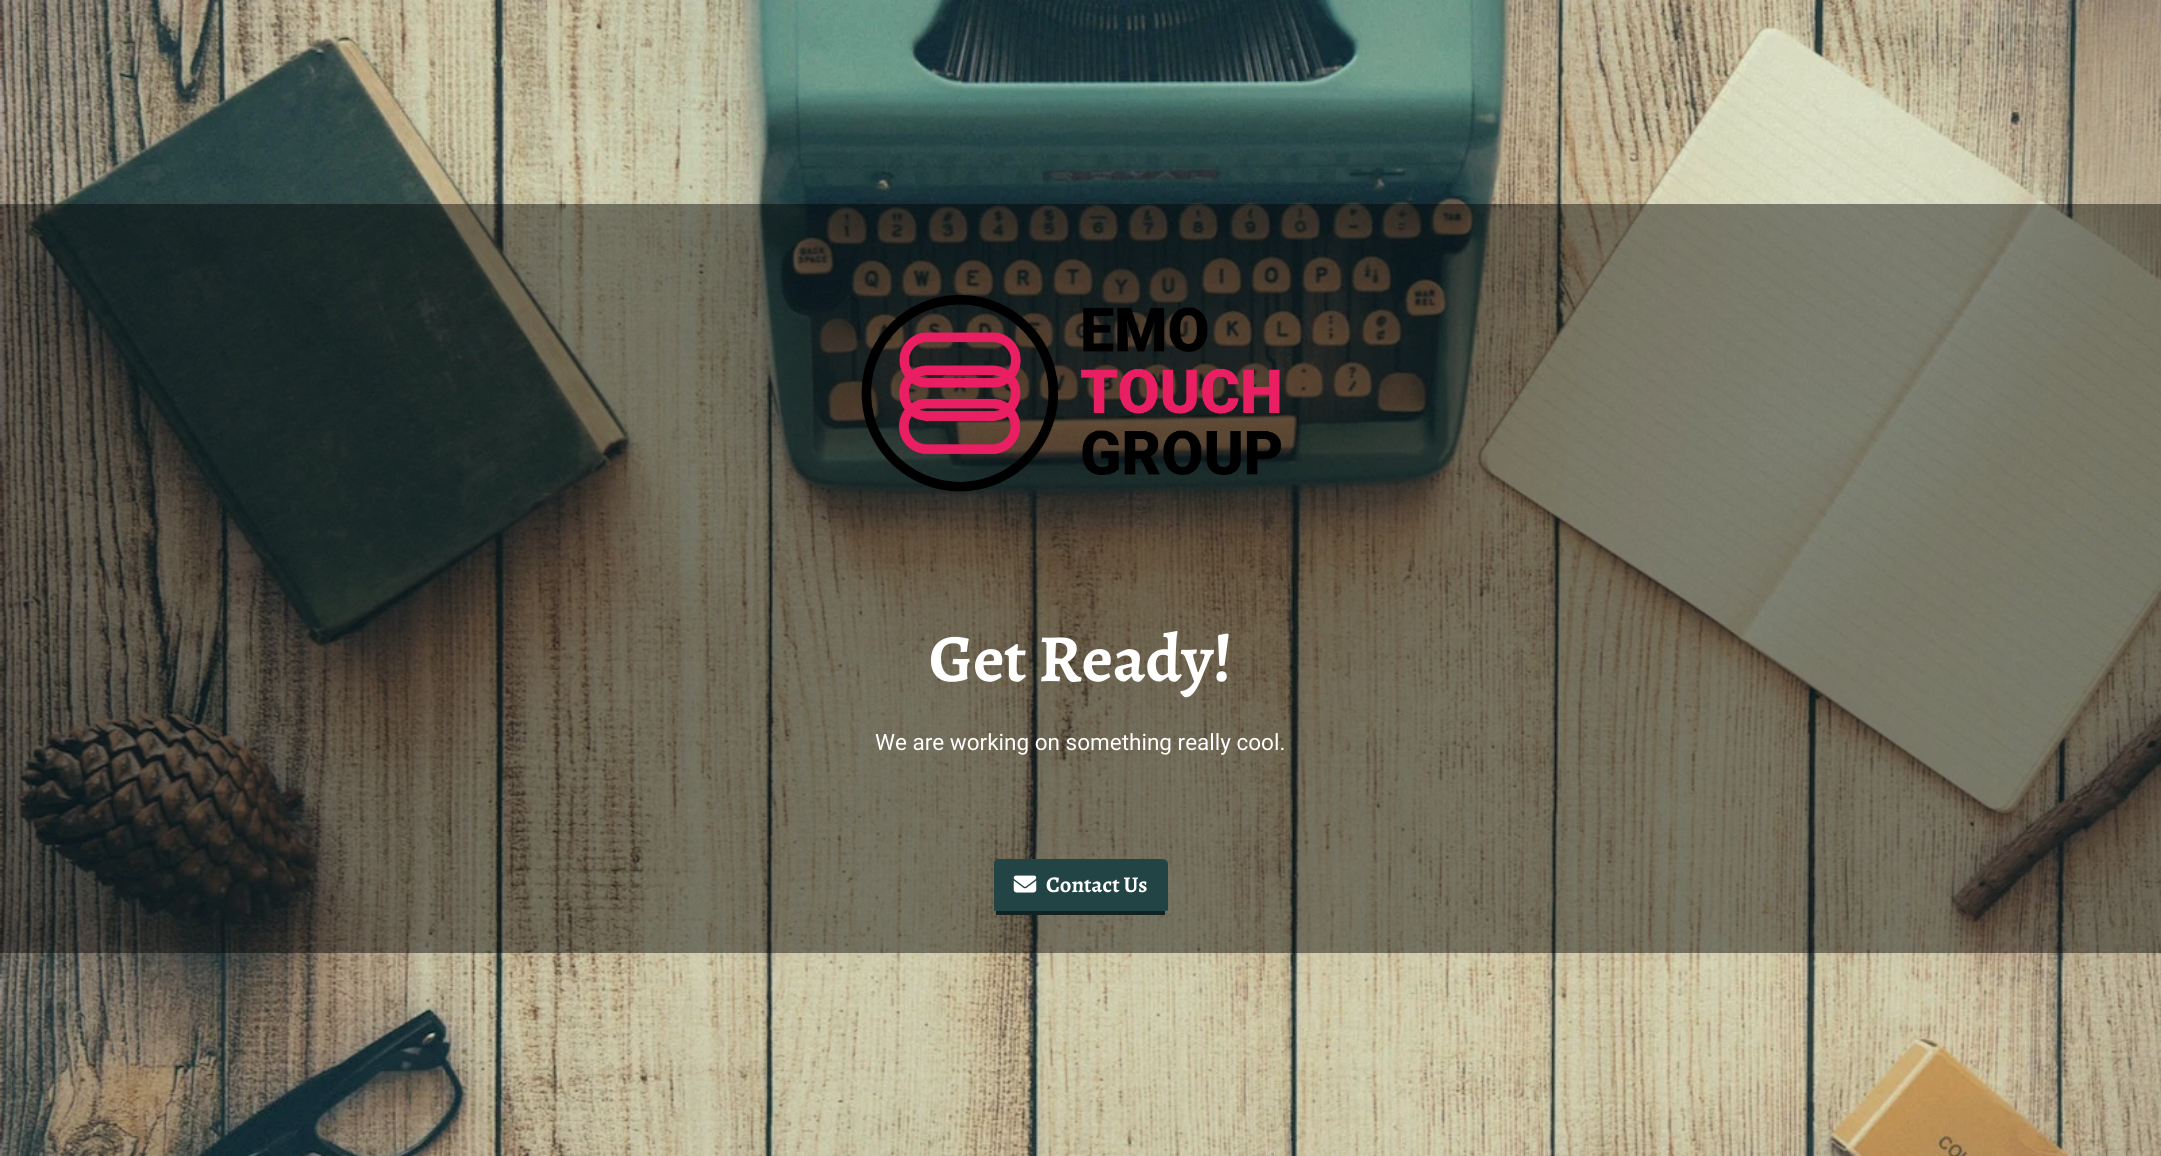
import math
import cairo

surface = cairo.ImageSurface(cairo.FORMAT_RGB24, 2161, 1156)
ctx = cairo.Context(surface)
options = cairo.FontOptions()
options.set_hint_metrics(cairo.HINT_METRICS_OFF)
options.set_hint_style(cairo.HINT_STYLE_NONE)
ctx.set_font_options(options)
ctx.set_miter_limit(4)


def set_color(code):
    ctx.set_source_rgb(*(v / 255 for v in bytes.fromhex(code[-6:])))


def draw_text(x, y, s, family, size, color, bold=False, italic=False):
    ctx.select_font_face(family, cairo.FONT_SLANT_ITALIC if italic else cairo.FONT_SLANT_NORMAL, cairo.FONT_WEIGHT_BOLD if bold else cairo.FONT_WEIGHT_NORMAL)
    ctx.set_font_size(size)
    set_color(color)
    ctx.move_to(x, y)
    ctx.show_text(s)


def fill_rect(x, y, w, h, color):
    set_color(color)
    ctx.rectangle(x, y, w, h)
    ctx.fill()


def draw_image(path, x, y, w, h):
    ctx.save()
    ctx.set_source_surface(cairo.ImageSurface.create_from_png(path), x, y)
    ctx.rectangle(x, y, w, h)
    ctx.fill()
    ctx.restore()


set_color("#ffffff")
ctx.paint()
draw_image("assets/img1.png", 0, 0, 2161, 1156)
ctx.set_source_rgba(0, 0, 0, 0.44)
ctx.rectangle(0, 204, 2161, 749)
ctx.fill()
draw_image("assets/img2.png", 861, 295, 420, 197)
draw_text(929, 681, "Get Ready!", "Alegreya", 67.5, "#ffffff", bold=True)
draw_text(875, 750, "We are working on something really cool.", "Roboto", 22.5, "#ffffff")
set_color("#224444")
ctx.new_path()
ctx.move_to(999, 859)
ctx.line_to(1162, 859)
ctx.curve_to(1165, 859, 1168, 861, 1168, 864)
ctx.line_to(1168, 910)
ctx.curve_to(1168, 911, 1165, 911, 1162, 911)
ctx.line_to(999, 911)
ctx.curve_to(996, 911, 994, 911, 994, 910)
ctx.line_to(994, 864)
ctx.curve_to(994, 861, 996, 859, 999, 859)
ctx.close_path()
ctx.fill()
fill_rect(996, 911, 169, 4, "#112222")
draw_image("assets/img3.png", 1013, 875, 24, 18)
draw_text(1046, 892, "Contact Us", "Alegreya", 22.5, "#ffffff", bold=True)
surface.write_to_png("output.png")
